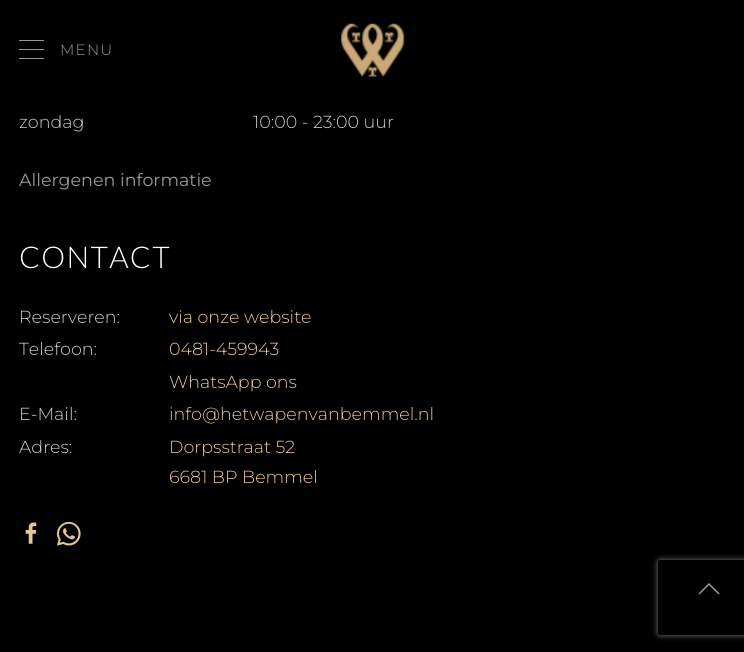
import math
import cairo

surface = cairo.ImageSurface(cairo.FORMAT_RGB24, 744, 652)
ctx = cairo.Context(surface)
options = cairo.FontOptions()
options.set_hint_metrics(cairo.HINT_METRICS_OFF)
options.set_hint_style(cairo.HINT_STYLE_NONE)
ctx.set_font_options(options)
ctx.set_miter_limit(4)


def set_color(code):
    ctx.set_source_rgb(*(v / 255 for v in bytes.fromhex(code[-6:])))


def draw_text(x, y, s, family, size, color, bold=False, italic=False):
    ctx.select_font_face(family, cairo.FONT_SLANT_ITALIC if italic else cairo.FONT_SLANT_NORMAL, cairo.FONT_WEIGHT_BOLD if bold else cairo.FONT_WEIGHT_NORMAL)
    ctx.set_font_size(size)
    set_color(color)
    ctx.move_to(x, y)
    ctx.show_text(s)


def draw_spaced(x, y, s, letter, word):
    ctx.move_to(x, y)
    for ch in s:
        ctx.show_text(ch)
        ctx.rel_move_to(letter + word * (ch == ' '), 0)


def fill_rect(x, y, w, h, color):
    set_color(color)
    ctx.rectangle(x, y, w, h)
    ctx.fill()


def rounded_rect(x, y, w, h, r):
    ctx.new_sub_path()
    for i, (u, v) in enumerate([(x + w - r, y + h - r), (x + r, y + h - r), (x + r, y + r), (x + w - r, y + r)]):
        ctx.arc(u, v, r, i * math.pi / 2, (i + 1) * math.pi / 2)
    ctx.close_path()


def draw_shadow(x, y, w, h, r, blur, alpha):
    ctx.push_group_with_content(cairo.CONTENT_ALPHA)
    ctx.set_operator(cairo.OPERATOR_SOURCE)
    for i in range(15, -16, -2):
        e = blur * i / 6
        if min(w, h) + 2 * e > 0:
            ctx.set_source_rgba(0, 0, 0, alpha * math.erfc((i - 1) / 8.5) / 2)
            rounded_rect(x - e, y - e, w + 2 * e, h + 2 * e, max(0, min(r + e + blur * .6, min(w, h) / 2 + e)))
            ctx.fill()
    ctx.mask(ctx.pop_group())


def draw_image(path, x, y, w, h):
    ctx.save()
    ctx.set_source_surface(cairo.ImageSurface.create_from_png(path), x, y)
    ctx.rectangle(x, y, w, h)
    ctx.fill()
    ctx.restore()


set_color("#000000")
ctx.paint()
fill_rect(19, 40, 25, 1, "#999999")
fill_rect(19, 49, 25, 1, "#999999")
fill_rect(19, 58, 25, 1, "#999999")
ctx.select_font_face("Montserrat Thin")
ctx.set_font_size(15)
draw_spaced(60, 55, "MENU", 1.25, 0)
draw_image("assets/img1.png", 341, 23, 64, 54)
draw_text(19, 128, "zondag", "Montserrat Thin", 17.5, "#cccccc")
draw_text(253, 128, "10:00 - 23:00 uur", "Montserrat Thin", 17.5, "#cccccc")
draw_text(19, 186, "Allergenen informatie", "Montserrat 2 Thin", 17.5, "#999999")
ctx.select_font_face("Lato Light")
ctx.set_font_size(30)
set_color("#ffffff")
draw_spaced(19, 268, "CONTACT", 1.25, 0)
draw_text(19, 323, "Reserveren:", "Montserrat Thin", 17.5, "#cccccc")
draw_text(169, 323, "via onze website", "Montserrat Thin", 17.5, "#e6c891")
draw_text(19, 355, "Telefoon:", "Montserrat Thin", 17.5, "#cccccc")
draw_text(169, 355, "0481-459943", "Montserrat Thin", 17.5, "#e6c891")
draw_text(169, 388, "WhatsApp ons", "Montserrat Thin", 17.5, "#e6c891")
draw_text(19, 420, "E-Mail:", "Montserrat Thin", 17.5, "#cccccc")
draw_text(169, 420, "info@hetwapenvanbemmel.nl", "Montserrat Thin", 17.5, "#e6c891")
draw_text(19, 453, "Adres:", "Montserrat Thin", 17.5, "#cccccc")
draw_text(169, 453, "Dorpsstraat 52", "Montserrat Thin", 17.5, "#e6c891")
draw_text(169, 483, "6681 BP Bemmel", "Montserrat Thin", 17.5, "#e6c891")
draw_image("assets/img2.png", 25, 522, 12, 22)
draw_image("assets/img3.png", 57, 521, 24, 25)
ctx.new_path()
ctx.move_to(699, 594)
ctx.line_to(709, 584)
ctx.line_to(719, 594)
set_color("#999999")
ctx.set_line_width(1.5)
ctx.stroke()
ctx.save()
ctx.set_fill_rule(cairo.FILL_RULE_EVEN_ODD)
ctx.new_path()
ctx.move_to(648, 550)
ctx.line_to(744, 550)
ctx.line_to(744, 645)
ctx.line_to(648, 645)
ctx.close_path()
ctx.move_to(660.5, 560)
ctx.line_to(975.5, 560)
ctx.curve_to(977, 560, 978, 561, 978, 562.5)
ctx.line_to(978, 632.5)
ctx.curve_to(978, 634, 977, 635, 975.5, 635)
ctx.line_to(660.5, 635)
ctx.curve_to(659, 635, 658, 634, 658, 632.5)
ctx.line_to(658, 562.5)
ctx.curve_to(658, 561, 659, 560, 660.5, 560)
ctx.close_path()
ctx.clip()
set_color("#808080")
draw_shadow(658, 560, 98, 75, 2.5, 3, 1)
ctx.restore()
surface.write_to_png("output.png")
